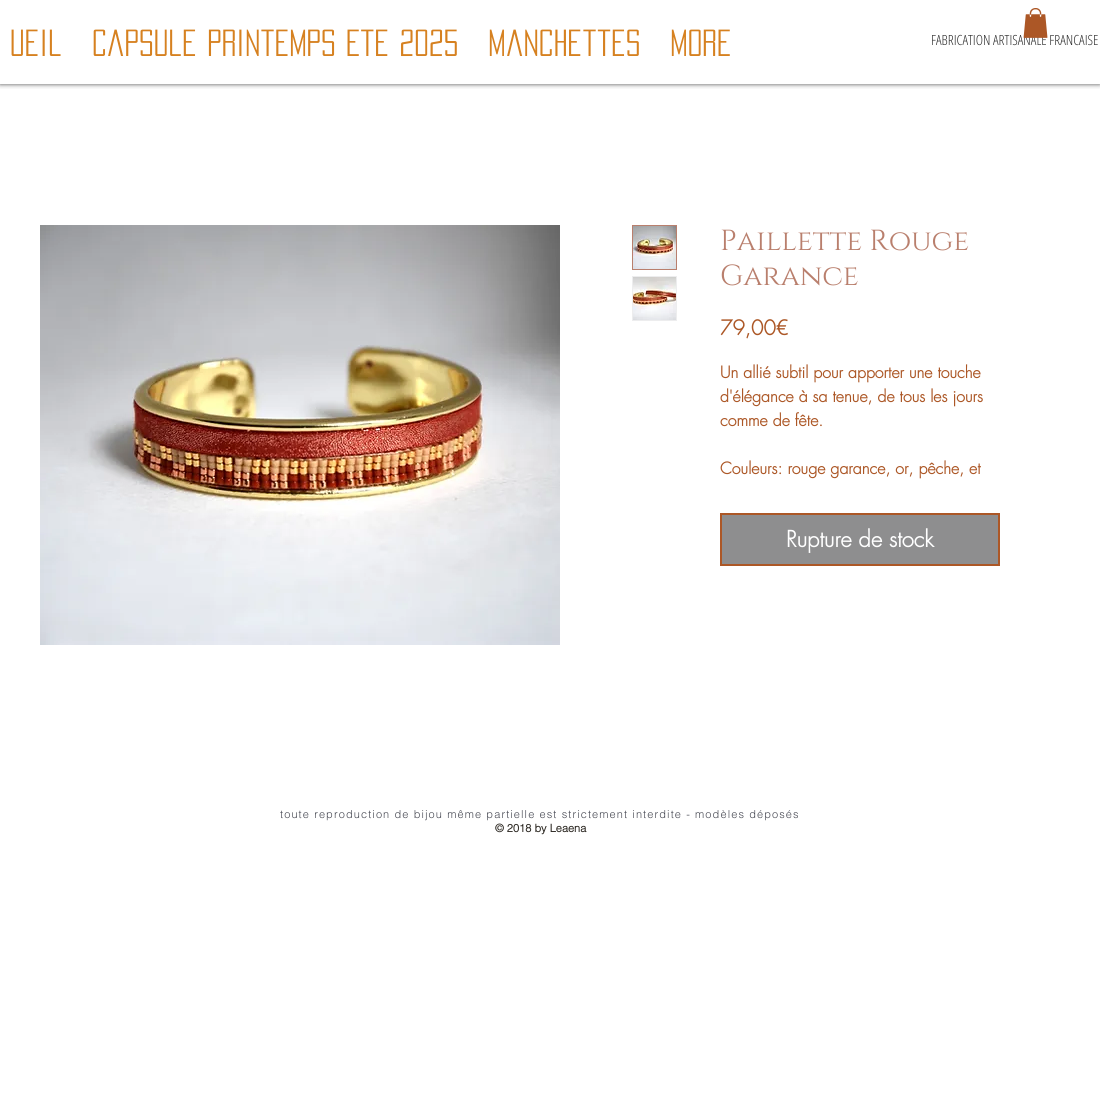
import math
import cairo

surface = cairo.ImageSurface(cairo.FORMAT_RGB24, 1100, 1114)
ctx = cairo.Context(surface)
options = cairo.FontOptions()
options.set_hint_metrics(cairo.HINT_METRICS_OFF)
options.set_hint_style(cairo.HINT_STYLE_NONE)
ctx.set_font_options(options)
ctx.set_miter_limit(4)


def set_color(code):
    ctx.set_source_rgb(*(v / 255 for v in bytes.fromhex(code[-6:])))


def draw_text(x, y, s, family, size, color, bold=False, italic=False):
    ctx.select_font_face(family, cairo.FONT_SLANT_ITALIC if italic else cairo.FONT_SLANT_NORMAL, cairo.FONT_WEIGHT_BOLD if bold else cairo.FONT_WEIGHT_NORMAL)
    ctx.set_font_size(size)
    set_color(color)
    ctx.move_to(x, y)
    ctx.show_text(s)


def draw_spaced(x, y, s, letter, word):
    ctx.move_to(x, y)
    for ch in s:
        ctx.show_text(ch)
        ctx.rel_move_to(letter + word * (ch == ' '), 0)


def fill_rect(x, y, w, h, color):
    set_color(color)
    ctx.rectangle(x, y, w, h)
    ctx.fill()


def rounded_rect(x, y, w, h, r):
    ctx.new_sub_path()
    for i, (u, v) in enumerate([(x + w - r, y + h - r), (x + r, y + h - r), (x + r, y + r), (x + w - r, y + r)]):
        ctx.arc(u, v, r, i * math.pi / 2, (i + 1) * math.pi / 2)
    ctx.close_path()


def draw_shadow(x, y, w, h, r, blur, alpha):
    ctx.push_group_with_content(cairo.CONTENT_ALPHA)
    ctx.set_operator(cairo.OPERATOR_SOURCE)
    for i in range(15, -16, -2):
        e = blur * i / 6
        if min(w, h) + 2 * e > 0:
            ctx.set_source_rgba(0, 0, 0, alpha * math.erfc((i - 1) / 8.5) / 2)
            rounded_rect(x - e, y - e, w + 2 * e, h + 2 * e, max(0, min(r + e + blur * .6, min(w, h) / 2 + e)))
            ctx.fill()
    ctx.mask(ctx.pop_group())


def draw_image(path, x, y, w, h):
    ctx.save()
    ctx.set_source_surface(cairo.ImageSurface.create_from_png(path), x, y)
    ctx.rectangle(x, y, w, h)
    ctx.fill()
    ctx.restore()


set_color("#ffffff")
ctx.paint()
ctx.save()
ctx.rectangle(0, 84, 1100, 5)
ctx.clip()
set_color("#000000")
draw_shadow(0, 0, 1100, 84, 0, 2.5, 0.7)
ctx.restore()
draw_text(931, 45, "FABRICATION ARTISANALE FRANCAISE", "Open Sans Condensed Light", 14, "#292929")
draw_image("assets/img1.png", 1023, 8, 25, 30)
draw_text(10, 56, "ueil", "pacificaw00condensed", 33, "#d68120")
draw_text(92, 56, "Capsule Printemps Ete 2025", "pacificaw00condensed", 33, "#d68120")
draw_text(488, 56, "Manchettes", "pacificaw00condensed", 33, "#d68120")
draw_text(670, 56, "More", "pacificaw00condensed", 33, "#d68120")
draw_image("assets/img2.png", 40, 225, 520, 420)
ctx.rectangle(632.5, 225.5, 44, 44)
set_color("#b97f6d")
ctx.set_line_width(1)
ctx.stroke()
draw_image("assets/img3.png", 633, 226, 43, 43)
fill_rect(632, 276, 45, 45, "#ededee")
draw_image("assets/img4.png", 633, 277, 43, 43)
draw_text(720, 250, "Paillette Rouge", "Cinzel", 29, "#b97f6d")
draw_text(720, 285, "Garance", "Cinzel", 29, "#b97f6d")
draw_text(720, 335, "79,00€", "futura", 20, "#ac5726", bold=True)
draw_text(720, 378, "Un allié subtil pour apporter une touche", "futura", 16, "#ac5726", bold=True)
draw_text(720, 402, "d'élégance à sa tenue, de tous les jours", "futura", 16, "#ac5726", bold=True)
draw_text(720, 426, "comme de fête.", "futura", 16, "#ac5726", bold=True)
draw_text(720, 474, "Couleurs: rouge garance, or, pêche, et", "futura", 16, "#ac5726", bold=True)
set_color("#8e8e8f")
ctx.rectangle(721, 514, 278, 51)
ctx.fill_preserve()
set_color("#ac5726")
ctx.set_line_width(2)
ctx.stroke()
draw_text(786, 547, "Rupture de stock", "futura", 22, "#ffffff", bold=True)
ctx.select_font_face("helvetica Light")
ctx.set_font_size(11)
set_color("#454751")
draw_spaced(280, 818, "toute reproduction de bijou même partielle est strictement interdite - modèles déposés", 1.1, 0)
draw_text(495, 832, "© 2018 by Leaena", "helvetica", 11, "#2c2822", bold=True)
surface.write_to_png("output.png")
